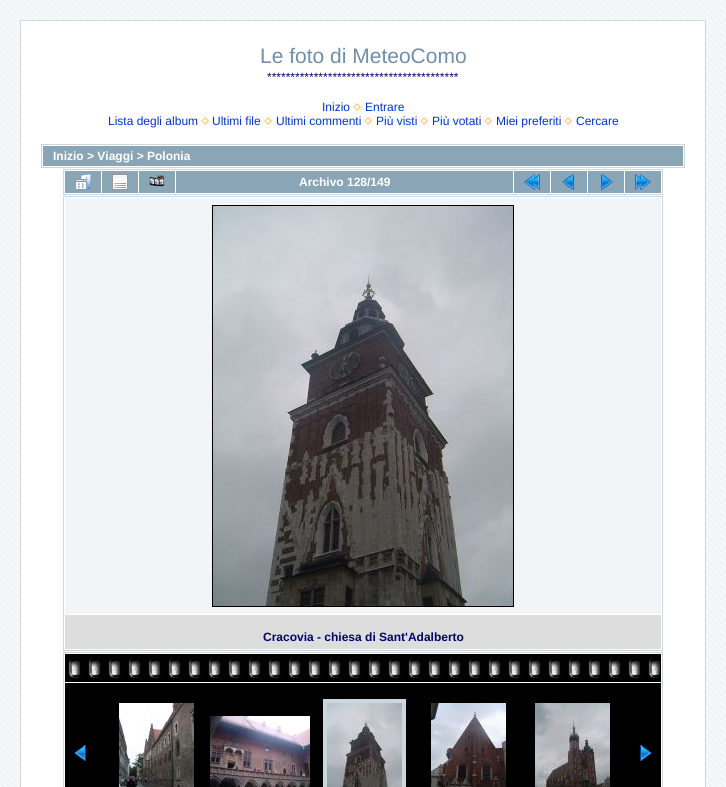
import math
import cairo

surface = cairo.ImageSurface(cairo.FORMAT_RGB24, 726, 787)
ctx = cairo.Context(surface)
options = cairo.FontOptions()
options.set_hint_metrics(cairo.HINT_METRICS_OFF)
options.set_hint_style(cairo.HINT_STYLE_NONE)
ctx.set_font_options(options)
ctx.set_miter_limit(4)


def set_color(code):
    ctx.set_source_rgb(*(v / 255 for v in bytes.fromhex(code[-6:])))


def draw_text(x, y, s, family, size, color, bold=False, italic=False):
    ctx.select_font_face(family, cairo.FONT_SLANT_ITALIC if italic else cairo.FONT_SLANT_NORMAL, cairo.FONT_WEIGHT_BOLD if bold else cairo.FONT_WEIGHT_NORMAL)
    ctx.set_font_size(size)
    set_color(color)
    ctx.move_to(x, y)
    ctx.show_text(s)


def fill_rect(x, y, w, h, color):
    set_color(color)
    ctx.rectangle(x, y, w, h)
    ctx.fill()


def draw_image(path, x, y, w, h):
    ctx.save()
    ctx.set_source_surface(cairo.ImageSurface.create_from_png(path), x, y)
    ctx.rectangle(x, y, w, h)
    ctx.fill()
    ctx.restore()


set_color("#f2f5f7")
ctx.paint()
draw_image("assets/img1.png", 0, 0, 726, 787)
set_color("#ffffff")
ctx.rectangle(20.5, 20.5, 685, 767)
ctx.fill_preserve()
set_color("#ccd7e0")
ctx.set_line_width(1)
ctx.stroke()
draw_text(260, 63, "Le foto di MeteoComo", "Liberation Sans", 21, "#718ea5")
draw_text(267, 81, "*****************************************", "Liberation Sans", 12, "#000666")
draw_text(322, 111, "Inizio", "Liberation Sans", 12, "#0033cc")
draw_image("assets/img2.png", 353, 103, 8, 8)
draw_text(365, 111, "Entrare", "Liberation Sans", 12, "#0033cc")
draw_text(108, 125, "Lista degli album", "Liberation Sans", 12, "#0033cc")
draw_image("assets/img2.png", 201, 117, 8, 8)
draw_text(212, 125, "Ultimi file", "Liberation Sans", 12, "#0033cc")
draw_image("assets/img2.png", 264, 117, 8, 8)
draw_text(276, 125, "Ultimi commenti", "Liberation Sans", 12, "#0033cc")
draw_image("assets/img2.png", 364, 117, 8, 8)
draw_text(376, 125, "Più visti", "Liberation Sans", 12, "#0033cc")
draw_image("assets/img2.png", 420, 117, 8, 8)
draw_text(432, 125, "Più votati", "Liberation Sans", 12, "#0033cc")
draw_image("assets/img2.png", 484, 117, 8, 8)
draw_text(496, 125, "Miei preferiti", "Liberation Sans", 12, "#0033cc")
draw_image("assets/img2.png", 564, 117, 8, 8)
draw_text(576, 125, "Cercare", "Liberation Sans", 12, "#0033cc")
ctx.rectangle(41.5, 144.5, 643, 23)
set_color("#ccd7e0")
ctx.stroke()
fill_rect(43, 146, 640, 20, "#8aa5b5")
draw_text(53, 160, "Inizio > Viaggi > Polonia", "Liberation Sans", 12, "#ffffff", bold=True)
ctx.rectangle(63.5, 169.5, 599, 25)
set_color("#ccd7e0")
ctx.stroke()
fill_rect(65, 171, 36, 22, "#8aa5b5")
draw_image("assets/img3.png", 75, 174, 16, 16)
fill_rect(102, 171, 36, 22, "#8aa5b5")
draw_image("assets/img4.png", 112, 174, 16, 16)
fill_rect(139, 171, 36, 22, "#8aa5b5")
draw_image("assets/img5.png", 149, 175, 16, 12)
fill_rect(176, 171, 337, 22, "#8aa5b5")
draw_text(299, 186, "Archivo 128/149", "Liberation Sans", 12, "#ffffff", bold=True)
fill_rect(514, 171, 36, 22, "#8aa5b5")
draw_image("assets/img6.png", 524, 174, 16, 16)
fill_rect(551, 171, 36, 22, "#8aa5b5")
draw_image("assets/img7.png", 562, 174, 12, 16)
fill_rect(588, 171, 36, 22, "#8aa5b5")
draw_image("assets/img8.png", 601, 174, 12, 16)
fill_rect(625, 171, 36, 22, "#8aa5b5")
draw_image("assets/img9.png", 635, 174, 16, 16)
ctx.rectangle(63.5, 196.5, 599, 454)
set_color("#ccd7e0")
ctx.stroke()
fill_rect(65, 198, 596, 416, "#f2f5f7")
ctx.rectangle(212.5, 205.5, 301, 401)
set_color("#000000")
ctx.stroke()
draw_image("assets/img10.png", 213, 206, 300, 400)
fill_rect(65, 615, 596, 34, "#dddddd")
draw_text(263, 641, "Cracovia - chiesa di Sant'Adalberto", "Liberation Sans", 12, "#000666", bold=True)
ctx.rectangle(63.5, 652.5, 599, 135)
set_color("#ccd7e0")
ctx.stroke()
fill_rect(65, 654, 596, 28, "#000000")
draw_image("assets/img11.png", 68, 654, 593, 24)
fill_rect(65, 683, 596, 104, "#000000")
draw_image("assets/img12.png", 74, 745, 12, 16)
draw_image("assets/img13.png", 119, 703, 75, 84)
draw_image("assets/img14.png", 210, 716, 100, 71)
ctx.rectangle(325, 701, 79, 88)
set_color("#cbd7de")
ctx.set_line_width(4)
ctx.stroke()
draw_image("assets/img15.png", 327, 703, 75, 84)
draw_image("assets/img16.png", 431, 703, 75, 84)
draw_image("assets/img17.png", 535, 703, 75, 84)
draw_image("assets/img18.png", 640, 745, 12, 16)
surface.write_to_png("output.png")
